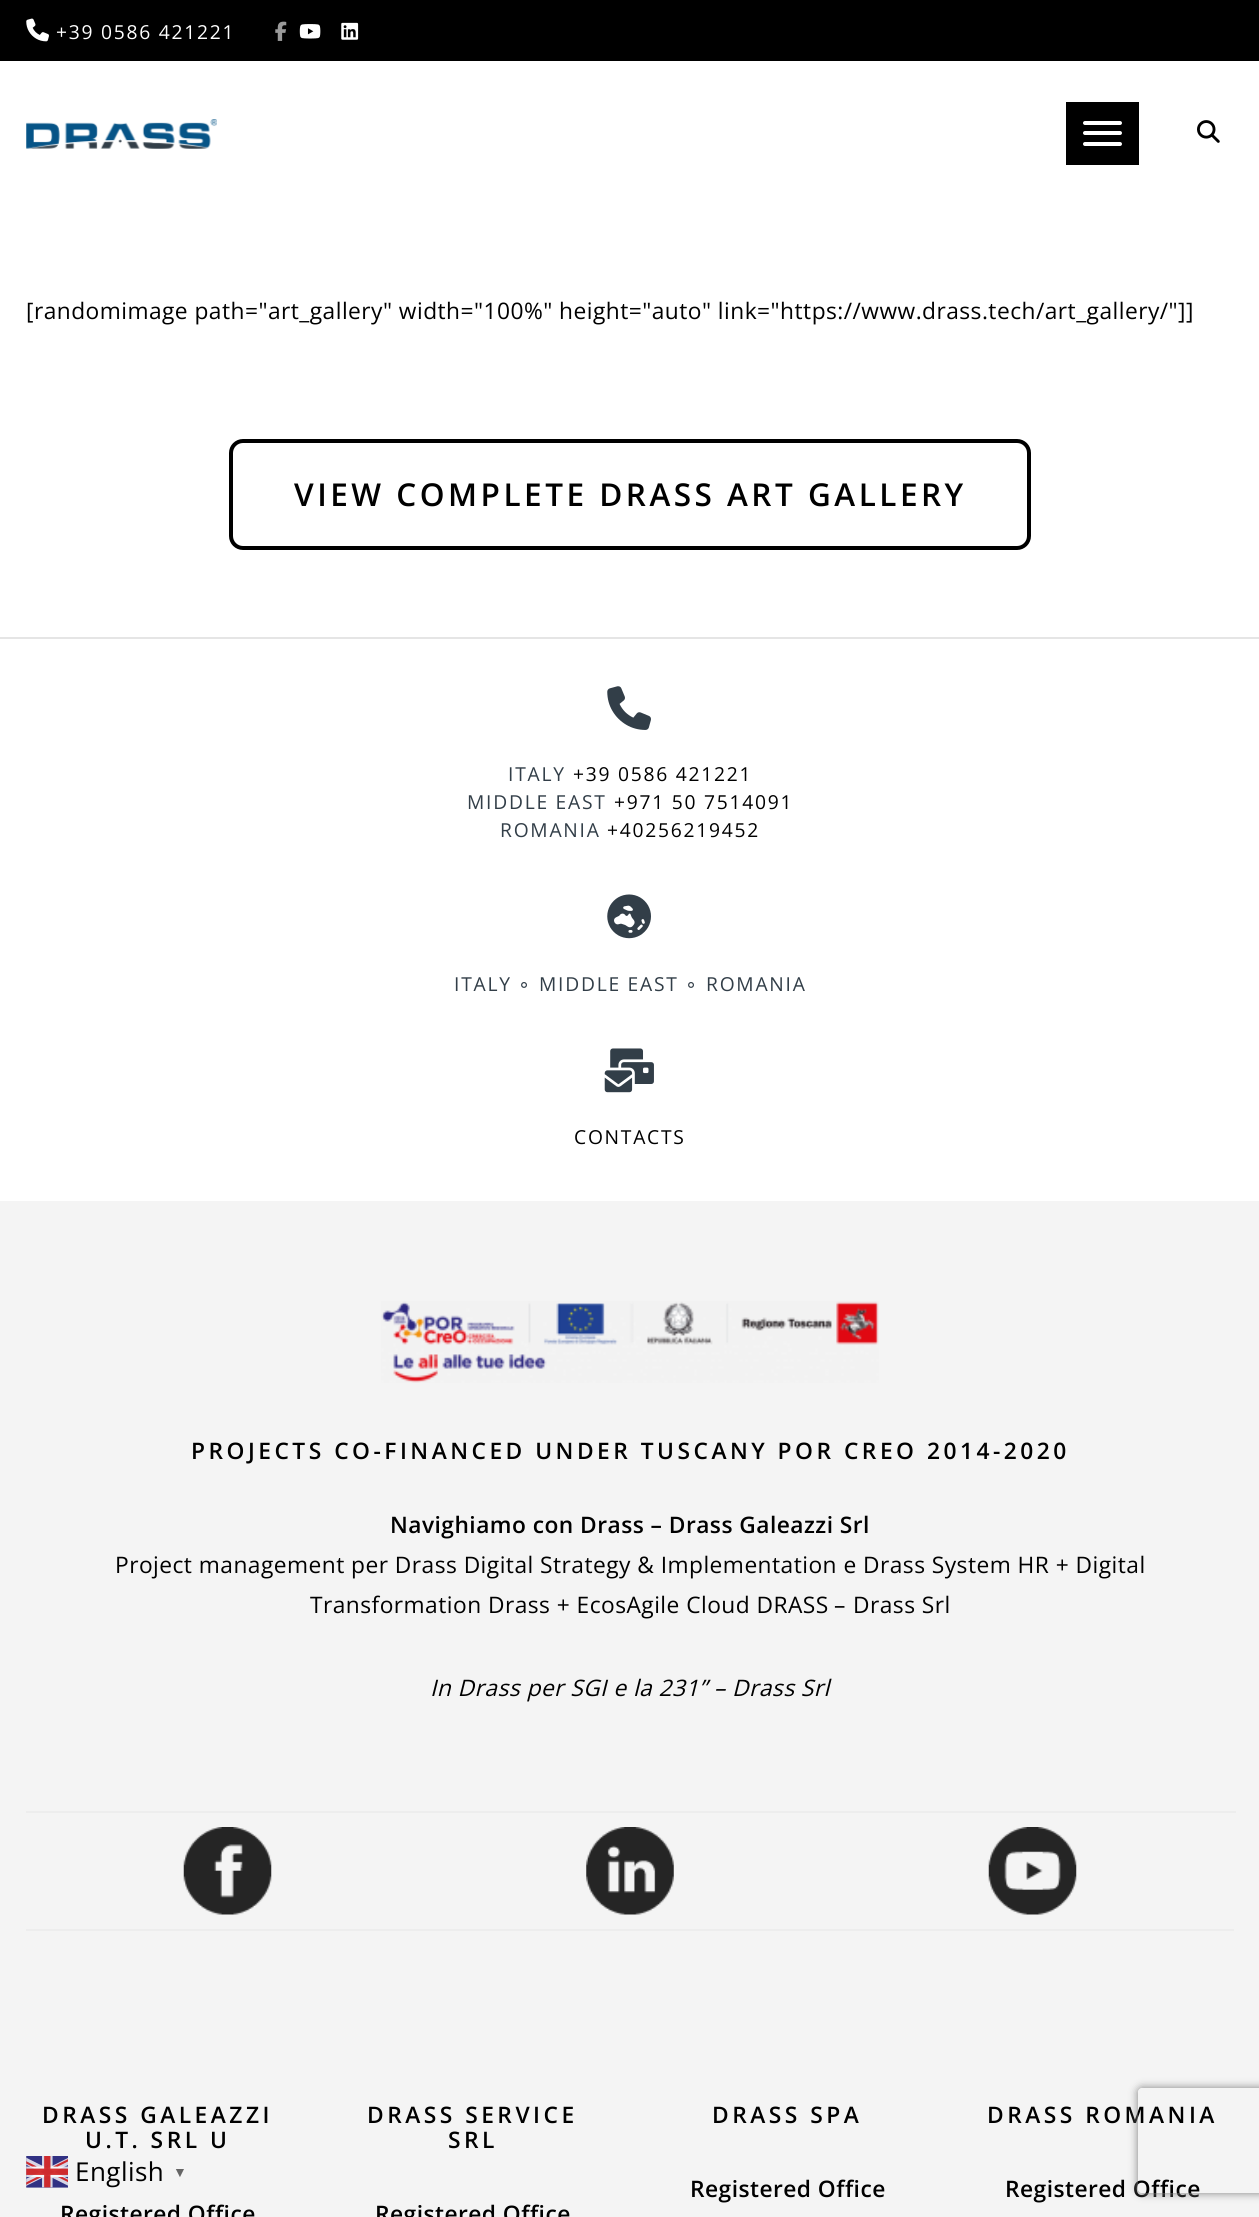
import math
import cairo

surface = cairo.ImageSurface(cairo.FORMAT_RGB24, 1259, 2217)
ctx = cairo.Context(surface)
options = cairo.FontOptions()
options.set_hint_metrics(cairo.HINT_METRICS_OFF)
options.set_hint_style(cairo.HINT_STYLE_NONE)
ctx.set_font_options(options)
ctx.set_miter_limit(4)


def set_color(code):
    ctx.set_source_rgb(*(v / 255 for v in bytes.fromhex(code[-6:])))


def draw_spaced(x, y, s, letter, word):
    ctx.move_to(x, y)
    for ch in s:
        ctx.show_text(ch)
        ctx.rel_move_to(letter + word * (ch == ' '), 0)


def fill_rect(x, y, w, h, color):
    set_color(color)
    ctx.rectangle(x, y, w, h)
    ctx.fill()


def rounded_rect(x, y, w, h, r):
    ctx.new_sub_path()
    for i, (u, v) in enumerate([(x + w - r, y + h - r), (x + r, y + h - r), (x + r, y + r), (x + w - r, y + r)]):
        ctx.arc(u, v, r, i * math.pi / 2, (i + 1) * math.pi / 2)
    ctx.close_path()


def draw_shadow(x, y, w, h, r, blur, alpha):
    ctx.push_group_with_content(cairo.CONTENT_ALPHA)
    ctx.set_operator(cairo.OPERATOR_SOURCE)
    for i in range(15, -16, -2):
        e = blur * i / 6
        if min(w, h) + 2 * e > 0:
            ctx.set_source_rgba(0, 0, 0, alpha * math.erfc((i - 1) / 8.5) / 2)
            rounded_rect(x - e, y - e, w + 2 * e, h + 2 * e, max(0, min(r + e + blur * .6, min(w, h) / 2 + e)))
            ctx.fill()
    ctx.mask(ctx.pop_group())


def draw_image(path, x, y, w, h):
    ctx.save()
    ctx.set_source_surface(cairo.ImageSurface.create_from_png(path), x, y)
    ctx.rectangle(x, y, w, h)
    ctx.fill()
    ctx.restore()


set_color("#ffffff")
ctx.paint()
fill_rect(0, 0, 1259, 61, "#000000")
draw_image("assets/img1.png", 26, 18, 23, 24)
ctx.select_font_face("Open Sans")
ctx.set_font_size(19.25)
set_color("#ffffff")
draw_spaced(56, 39, "+39 0586 421221", 1.75, 0)
draw_image("assets/img2.png", 275, 21, 12, 20)
draw_image("assets/img3.png", 299, 24, 22, 15)
draw_image("assets/img4.png", 341, 22, 18, 18)
draw_image("assets/img5.png", 26, 119, 191, 30)
fill_rect(1066, 102, 73, 63, "#000000")
set_color("#ffffff")
rounded_rect(1083, 121, 39, 4, 2)
ctx.fill()
rounded_rect(1083, 131, 39, 4, 2)
ctx.fill()
rounded_rect(1083, 142, 39, 4, 2)
ctx.fill()
draw_image("assets/img6.png", 1197, 120, 23, 23)
ctx.set_font_size(22.75)
set_color("#000000")
draw_spaced(26, 319, "[randomimage path=\"art_gallery\" width=\"100%\" height=\"auto\" link=\"https://www.drass.tech/art_gallery/\"]]", 0.46, 0)
rounded_rect(231, 441, 798, 107, 12)
ctx.set_line_width(4)
ctx.stroke()
ctx.select_font_face("Open Sans SemiBold")
ctx.set_font_size(31.5)
draw_spaced(294, 506, "VIEW COMPLETE DRASS ART GALLERY", 3.5, 0)
fill_rect(0, 1201, 1259, 1016, "#f4f4f4")
fill_rect(0, 637, 1259, 2, "#e5e5e5")
draw_image("assets/img7.png", 607, 686, 44, 44)
ctx.select_font_face("Open Sans")
ctx.set_font_size(19.25)
set_color("#323e48")
draw_spaced(508, 781, "ITALY", 1.75, 0)
set_color("#000000")
draw_spaced(573, 781, "+39 0586 421221", 1.75, 0)
set_color("#323e48")
draw_spaced(467, 809, "MIDDLE EAST", 1.75, 0)
set_color("#000000")
draw_spaced(614, 809, "+971 50 7514091", 1.75, 0)
set_color("#323e48")
draw_spaced(500, 837, "ROMANIA", 1.75, 0)
set_color("#000000")
draw_spaced(607, 837, "+40256219452", 1.75, 0)
draw_image("assets/img8.png", 607, 894, 44, 45)
set_color("#323e48")
draw_spaced(454, 991, "ITALY", 1.75, 0)
ctx.select_font_face("DejaVu Sans")
draw_spaced(518, 991, "∘", 1.75, 0)
ctx.select_font_face("Open Sans")
draw_spaced(539, 991, "MIDDLE EAST", 1.75, 0)
ctx.select_font_face("DejaVu Sans")
draw_spaced(685, 991, "∘", 1.75, 0)
ctx.select_font_face("Open Sans")
draw_spaced(706, 991, "ROMANIA", 1.75, 0)
draw_image("assets/img9.png", 604, 1048, 50, 45)
set_color("#000000")
draw_spaced(574, 1144, "CONTACTS", 1.75, 0)
draw_image("assets/img10.png", 381, 1301, 498, 82)
ctx.select_font_face("Open Sans SemiBold")
ctx.set_font_size(22.75)
draw_spaced(191, 1459, "PROJECTS CO-FINANCED UNDER TUSCANY POR CREO 2014-2020", 3.5, 0)
draw_spaced(390, 1533, "Navighiamo con Drass – Drass Galeazzi Srl", 0.46, 0)
ctx.select_font_face("Open Sans")
draw_spaced(115, 1573, "Project management per Drass Digital Strategy & Implementation e Drass System HR + Digital", 0.46, 0)
draw_spaced(310, 1613, "Transformation Drass + EcosAgile Cloud DRASS", 0.46, 0)
ctx.select_font_face("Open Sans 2")
draw_spaced(834, 1613, "–", 0.46, 0)
ctx.select_font_face("Open Sans")
draw_spaced(853, 1613, "Drass Srl", 0.46, 0)
ctx.select_font_face("Open Sans", cairo.FONT_SLANT_ITALIC)
draw_spaced(430, 1696, "In Drass per SGI e la 231", 0.46, 0)
ctx.select_font_face("Open Sans 2", cairo.FONT_SLANT_ITALIC)
draw_spaced(699, 1696, "” –", 0.46, 0)
ctx.select_font_face("Open Sans", cairo.FONT_SLANT_ITALIC)
draw_spaced(732, 1696, "Drass Srl", 0.46, 0)
fill_rect(26, 1929, 1208, 2, "#ededed")
fill_rect(26, 1811, 1210, 2, "#ededed")
draw_image("assets/img11.png", 988, 1827, 89, 88)
draw_image("assets/img12.png", 183, 1827, 89, 88)
draw_image("assets/img13.png", 586, 1827, 88, 88)
ctx.select_font_face("Open Sans SemiBold")
set_color("#000000")
draw_spaced(42, 2123, "DRASS GALEAZZI", 3.5, 0)
draw_spaced(85, 2148, "U.T. SRL U", 3.5, 0)
draw_spaced(60, 2222, "Registered Office", 0.46, 0)
draw_spaced(367, 2123, "DRASS SERVICE", 3.5, 0)
draw_spaced(448, 2148, "SRL", 3.5, 0)
draw_spaced(375, 2222, "Registered Office", 0.46, 0)
draw_spaced(712, 2123, "DRASS SPA", 3.5, 0)
draw_spaced(690, 2197, "Registered Office", 0.46, 0)
draw_spaced(987, 2123, "DRASS ROMANIA", 3.5, 0)
draw_spaced(1005, 2197, "Registered Office", 0.46, 0)
draw_image("assets/img14.png", 26, 2156, 42, 32)
ctx.select_font_face("Open Sans")
ctx.set_font_size(26)
draw_spaced(75, 2181, "English", 0.46, 0)
ctx.select_font_face("Liberation Serif", cairo.FONT_SLANT_NORMAL, cairo.FONT_WEIGHT_BOLD)
ctx.set_font_size(14)
set_color("#666666")
draw_spaced(173, 2177, "▼", 0.46, 0)
ctx.save()
ctx.set_fill_rule(cairo.FILL_RULE_EVEN_ODD)
ctx.new_path()
ctx.move_to(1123, 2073)
ctx.line_to(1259, 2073)
ctx.line_to(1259, 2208)
ctx.line_to(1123, 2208)
ctx.close_path()
ctx.move_to(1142, 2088)
ctx.line_to(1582, 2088)
ctx.curve_to(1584, 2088, 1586, 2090, 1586, 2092)
ctx.line_to(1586, 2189)
ctx.curve_to(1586, 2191, 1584, 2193, 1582, 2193)
ctx.line_to(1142, 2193)
ctx.curve_to(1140, 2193, 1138, 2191, 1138, 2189)
ctx.line_to(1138, 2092)
ctx.curve_to(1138, 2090, 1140, 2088, 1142, 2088)
ctx.close_path()
ctx.clip()
set_color("#808080")
draw_shadow(1138, 2088, 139, 105, 4, 4.5, 1)
ctx.restore()
surface.write_to_png("output.png")
